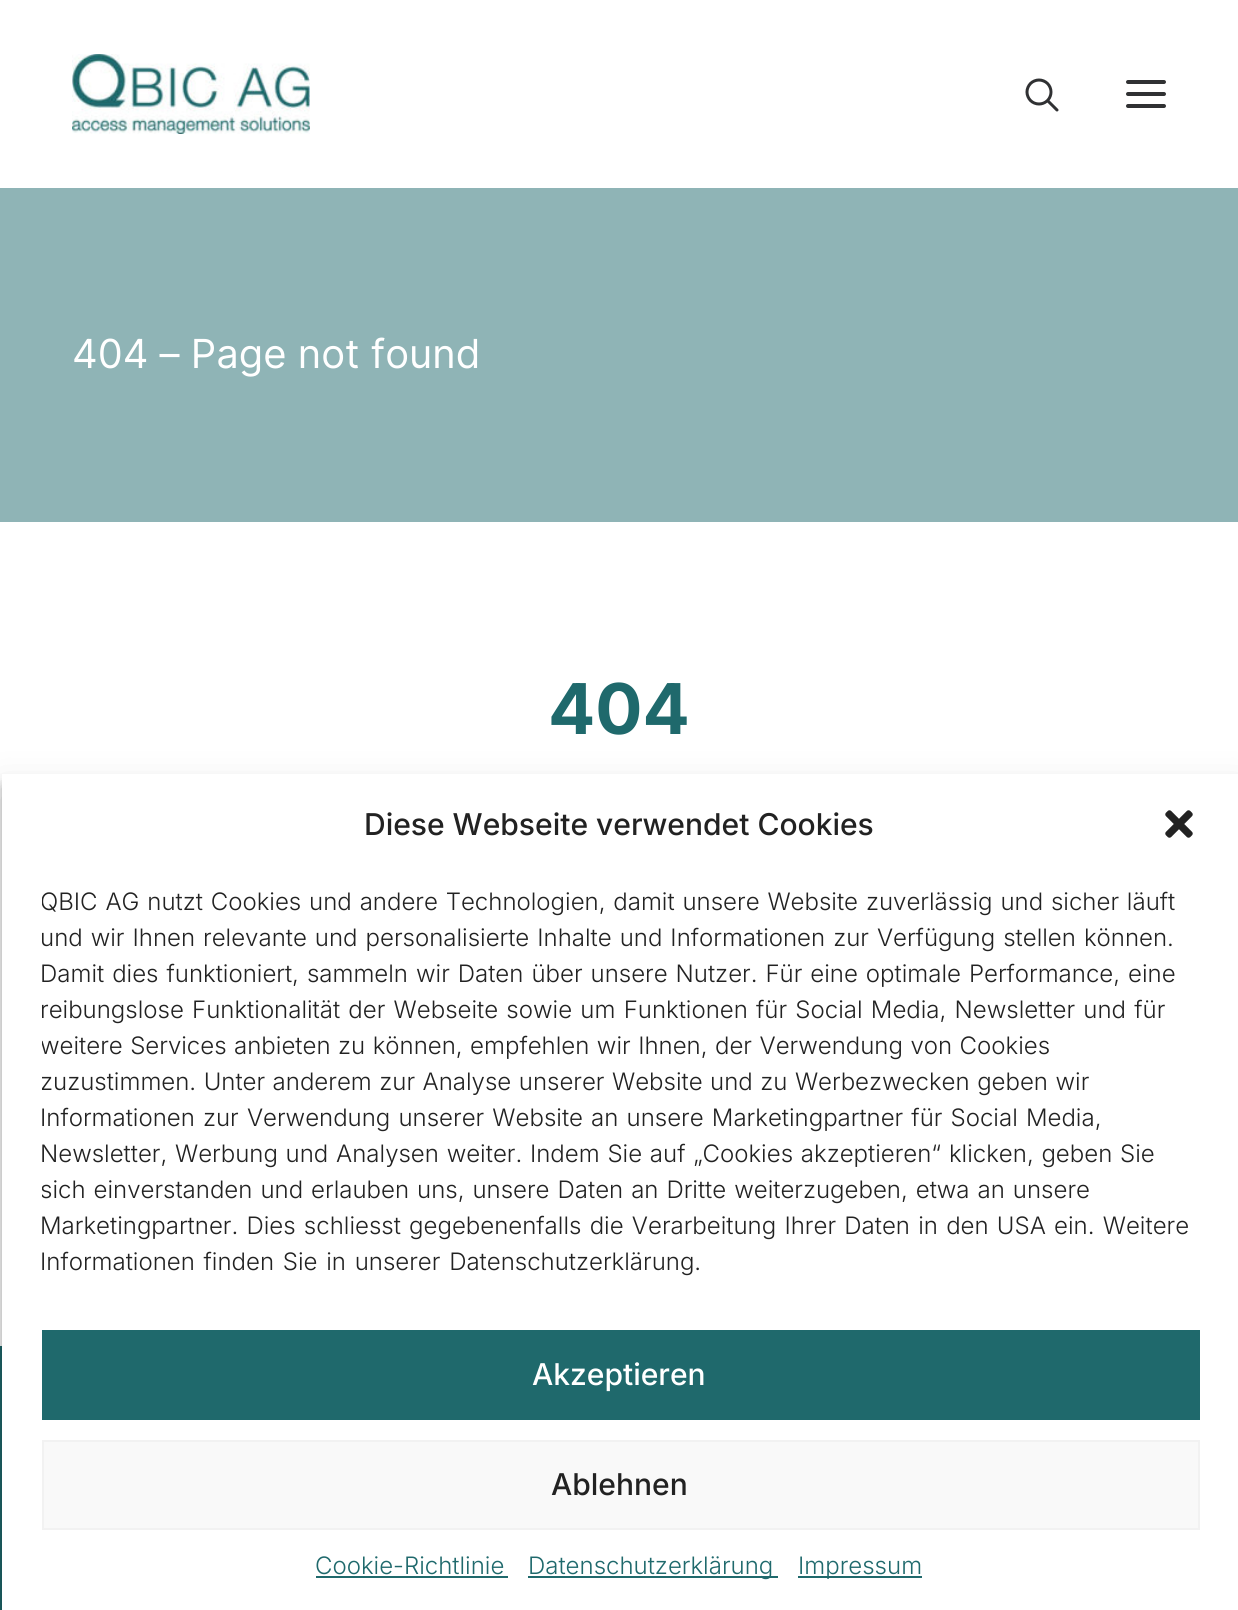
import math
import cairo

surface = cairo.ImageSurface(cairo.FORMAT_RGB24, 1238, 1610)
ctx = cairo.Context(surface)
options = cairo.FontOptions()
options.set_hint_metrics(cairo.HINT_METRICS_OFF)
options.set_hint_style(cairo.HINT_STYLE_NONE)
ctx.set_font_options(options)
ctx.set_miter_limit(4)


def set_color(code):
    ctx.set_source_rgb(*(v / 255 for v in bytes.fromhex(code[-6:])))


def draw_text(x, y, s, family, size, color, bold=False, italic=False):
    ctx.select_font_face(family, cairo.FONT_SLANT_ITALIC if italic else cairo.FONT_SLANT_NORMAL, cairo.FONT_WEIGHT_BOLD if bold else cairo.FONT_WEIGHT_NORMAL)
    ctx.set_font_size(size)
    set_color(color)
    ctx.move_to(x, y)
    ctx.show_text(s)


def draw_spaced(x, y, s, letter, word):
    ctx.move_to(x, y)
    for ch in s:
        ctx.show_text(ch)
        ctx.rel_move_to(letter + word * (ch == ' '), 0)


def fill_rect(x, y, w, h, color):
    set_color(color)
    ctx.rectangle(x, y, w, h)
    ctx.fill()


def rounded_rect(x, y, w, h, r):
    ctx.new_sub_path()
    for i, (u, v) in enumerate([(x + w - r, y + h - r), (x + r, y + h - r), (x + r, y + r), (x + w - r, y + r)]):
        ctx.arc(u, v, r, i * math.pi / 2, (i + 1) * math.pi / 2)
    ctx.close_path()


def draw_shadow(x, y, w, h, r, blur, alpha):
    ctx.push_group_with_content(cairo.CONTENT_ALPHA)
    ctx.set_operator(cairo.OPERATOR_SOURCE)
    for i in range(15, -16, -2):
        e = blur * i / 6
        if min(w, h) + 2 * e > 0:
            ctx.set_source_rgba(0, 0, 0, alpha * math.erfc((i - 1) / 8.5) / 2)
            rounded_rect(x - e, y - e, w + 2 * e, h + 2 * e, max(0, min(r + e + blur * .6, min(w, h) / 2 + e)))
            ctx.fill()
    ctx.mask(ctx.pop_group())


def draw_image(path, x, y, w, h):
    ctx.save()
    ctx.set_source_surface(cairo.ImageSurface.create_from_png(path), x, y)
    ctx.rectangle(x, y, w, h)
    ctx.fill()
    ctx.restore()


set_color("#ffffff")
ctx.paint()
draw_image("assets/img1.png", 72, 54, 238, 80)
draw_image("assets/img2.png", 1025, 78, 34, 34)
set_color("#303133")
rounded_rect(1126, 92, 40, 4, 2)
ctx.fill()
rounded_rect(1126, 80, 40, 4, 2)
ctx.fill()
rounded_rect(1126, 104, 40, 4, 2)
ctx.fill()
fill_rect(0, 188, 1238, 334, "#8fb4b6")
draw_text(72, 368, "404 – Page not found", "Inter", 40, "#ffffff")
draw_text(548, 734, "404", "Inter", 70, "#1f696c", bold=True)
fill_rect(0, 1346, 2, 264, "#1f696c")
set_color("#000000")
draw_shadow(2, 786, 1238, 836, 0, 6, 0.23)
draw_shadow(2, 794, 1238, 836, 0, 20, 0.19)
fill_rect(2, 774, 1236, 836, "#ffffff")
draw_text(364, 835, "Diese Webseite verwendet Cookies", "Inter Medium", 30, "#222222")
draw_image("assets/img3.png", 1165, 810, 28, 28)
ctx.save()
ctx.rectangle(42, 884, 1158, 406)
ctx.clip()
ctx.select_font_face("Inter Light")
ctx.set_font_size(24)
draw_spaced(40, 910, "QBIC AG nutzt Cookies und andere Technologien, damit unsere Website zuverlässig und sicher läuft", 0, 1.1)
ctx.restore()
ctx.select_font_face("Inter Light")
ctx.set_font_size(24)
draw_spaced(40, 946, "und wir Ihnen relevante und personalisierte Inhalte und Informationen zur Verfügung stellen können.", 0, 1.25)
draw_spaced(40, 982, "Damit dies funktioniert, sammeln wir Daten über unsere Nutzer. Für eine optimale Performance, eine", 0, 1.25)
draw_spaced(40, 1018, "reibungslose Funktionalität der Webseite sowie um Funktionen für Social Media, Newsletter und für", 0, 1.5)
ctx.save()
ctx.rectangle(42, 884, 1158, 406)
ctx.clip()
draw_spaced(40, 1054, "weitere Services anbieten zu können, empfehlen wir Ihnen, der Verwendung von Cookies", 0, 0.75)
draw_spaced(40, 1090, "zuzustimmen. Unter anderem zur Analyse unserer Website und zu Werbezwecken geben wir", 0, 0.75)
ctx.restore()
draw_spaced(40, 1126, "Informationen zur Verwendung unserer Website an unsere Marketingpartner für Social Media,", 0, 1.4)
draw_spaced(40, 1162, "Newsletter, Werbung und Analysen weiter. Indem Sie auf „Cookies akzeptieren“ klicken, geben Sie", 0, 1)
ctx.save()
ctx.rectangle(42, 884, 1158, 406)
ctx.clip()
draw_spaced(40, 1198, "sich einverstanden und erlauben uns, unsere Daten an Dritte weiterzugeben, etwa an unsere", 0, 1.25)
ctx.restore()
draw_spaced(40, 1234, "Marketingpartner. Dies schliesst gegebenenfalls die Verarbeitung Ihrer Daten in den USA ein. Weitere", 0, 1.5)
draw_spaced(40, 1270, "Informationen finden Sie in unserer Datenschutzerklärung.", 0, 2)
fill_rect(42, 1330, 1158, 90, "#1f696c")
draw_text(532, 1385, "Akzeptieren", "Inter Medium", 30, "#ffffff")
set_color("#f9f9f9")
ctx.rectangle(43, 1441, 1156, 88)
ctx.fill_preserve()
set_color("#f2f2f2")
ctx.stroke()
draw_text(551, 1495, "Ablehnen", "Inter Medium", 30, "#222222")
draw_text(315, 1574, "Cookie-Richtlinie", "Inter Light", 24, "#1f696c")
fill_rect(316, 1576, 192, 2, "#1f696c")
fill_rect(528, 1576, 250, 2, "#1f696c")
draw_text(528, 1574, "Datenschutzerklärung", "Inter Light", 24, "#1f696c")
fill_rect(798, 1576, 124, 2, "#1f696c")
draw_text(798, 1574, "Impressum", "Inter Light", 24, "#1f696c")
surface.write_to_png("output.png")
